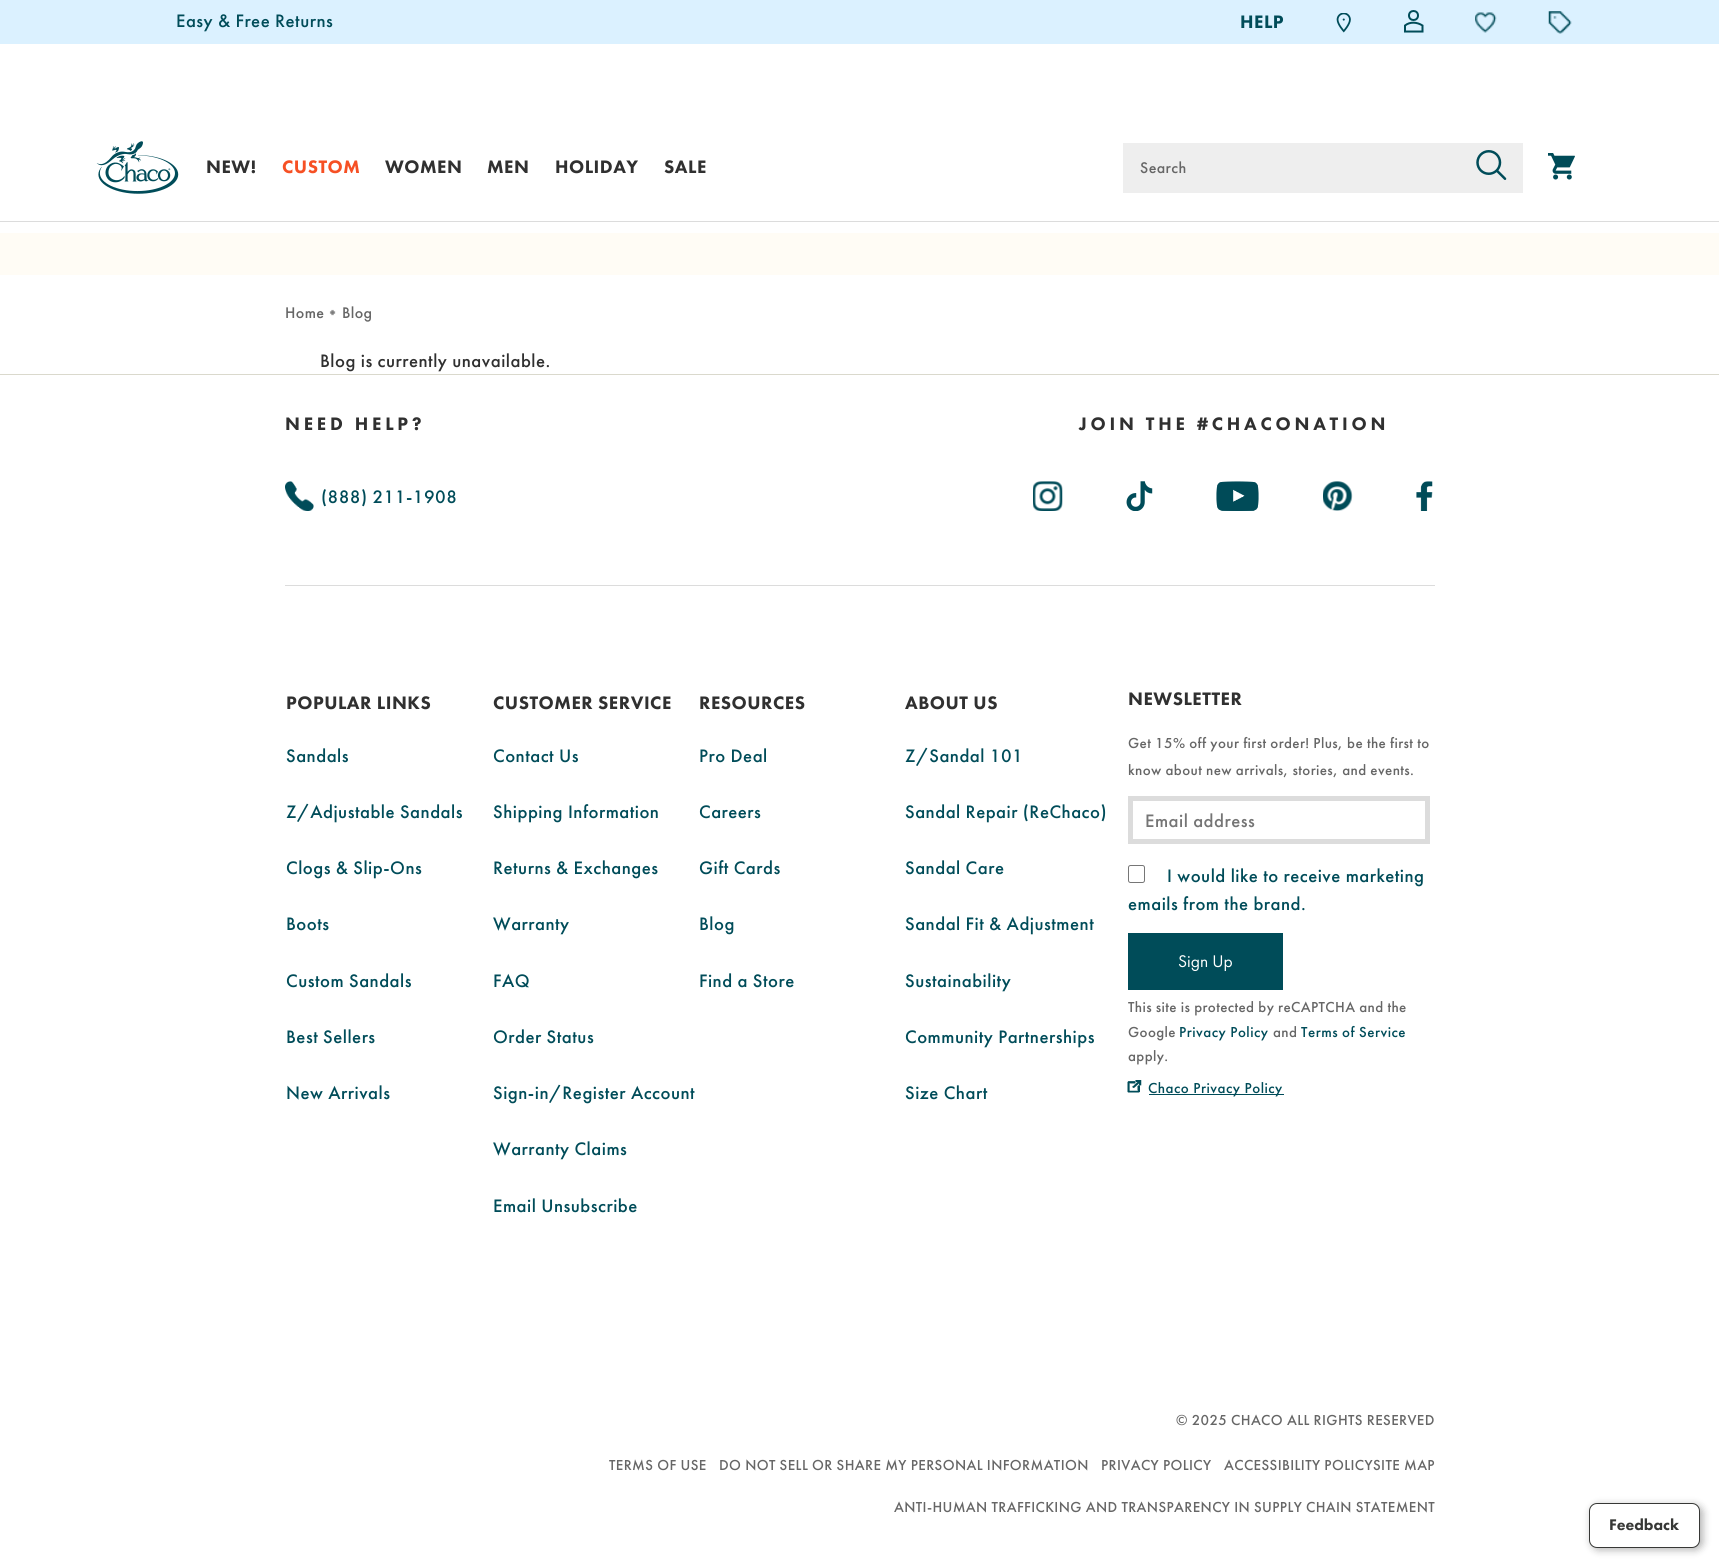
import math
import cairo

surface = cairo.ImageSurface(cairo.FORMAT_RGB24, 1719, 1559)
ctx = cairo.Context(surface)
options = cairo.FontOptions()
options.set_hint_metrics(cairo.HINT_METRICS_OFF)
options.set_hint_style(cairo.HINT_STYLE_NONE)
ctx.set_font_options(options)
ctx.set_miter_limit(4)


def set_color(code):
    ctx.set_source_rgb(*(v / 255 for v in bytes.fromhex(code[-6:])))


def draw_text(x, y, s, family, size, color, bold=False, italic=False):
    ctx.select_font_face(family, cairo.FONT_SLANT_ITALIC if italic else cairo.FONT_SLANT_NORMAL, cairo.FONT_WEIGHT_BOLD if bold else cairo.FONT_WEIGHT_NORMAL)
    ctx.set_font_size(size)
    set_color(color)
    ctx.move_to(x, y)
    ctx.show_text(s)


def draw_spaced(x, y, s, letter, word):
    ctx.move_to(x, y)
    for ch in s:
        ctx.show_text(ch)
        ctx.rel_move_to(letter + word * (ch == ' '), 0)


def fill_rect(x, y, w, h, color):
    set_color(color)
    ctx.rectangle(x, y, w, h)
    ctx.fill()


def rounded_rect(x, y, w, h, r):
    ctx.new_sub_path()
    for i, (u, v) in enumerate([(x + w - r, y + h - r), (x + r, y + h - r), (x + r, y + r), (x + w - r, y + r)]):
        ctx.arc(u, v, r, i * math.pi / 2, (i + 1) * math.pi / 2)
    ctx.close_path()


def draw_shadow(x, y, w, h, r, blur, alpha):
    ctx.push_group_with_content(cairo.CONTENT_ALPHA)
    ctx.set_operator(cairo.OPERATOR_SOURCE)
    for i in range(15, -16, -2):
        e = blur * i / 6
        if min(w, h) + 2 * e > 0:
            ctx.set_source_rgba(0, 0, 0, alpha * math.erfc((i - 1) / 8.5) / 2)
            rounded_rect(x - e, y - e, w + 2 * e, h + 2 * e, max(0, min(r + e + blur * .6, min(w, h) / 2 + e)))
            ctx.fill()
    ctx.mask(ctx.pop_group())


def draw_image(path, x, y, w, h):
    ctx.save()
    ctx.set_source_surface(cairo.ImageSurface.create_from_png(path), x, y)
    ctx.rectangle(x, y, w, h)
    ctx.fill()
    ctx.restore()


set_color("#ffffff")
ctx.paint()
fill_rect(0, 0, 1719, 44, "#dbf1ff")
ctx.select_font_face("Futura PT Medium")
ctx.set_font_size(18.75)
set_color("#004c59")
draw_spaced(176, 27, "Easy & Free Returns", 0.5, 0)
ctx.select_font_face("Futura PT Black")
draw_spaced(1240, 28, "HELP", 0.5, 0)
draw_image("assets/img1.png", 1336, 13, 15, 20)
ctx.arc(1413.5, 15.5, 4.5, 0, 2 * math.pi)
ctx.stroke()
ctx.new_path()
ctx.move_to(1405, 31.5)
ctx.line_to(1405, 25.5)
ctx.curve_to(1410, 21.5, 1417, 22, 1422.5, 25.5)
ctx.line_to(1422.5, 31.5)
ctx.close_path()
ctx.stroke()
draw_image("assets/img2.png", 1475, 12, 22, 21)
draw_image("assets/img3.png", 1548, 11, 24, 23)
fill_rect(0, 221, 1719, 1, "#dcdcdc")
draw_image("assets/img4.png", 96, 141, 83, 53)
set_color("#303030")
draw_spaced(206, 173, "NEW!", 0.5, 0)
set_color("#f65024")
draw_spaced(282, 173, "CUSTOM", 0.5, 0)
set_color("#303030")
draw_spaced(385, 173, "WOMEN", 0.5, 0)
draw_spaced(487, 173, "MEN", 0.5, 0)
draw_spaced(555, 173, "HOLIDAY", 0.5, 0)
draw_spaced(664, 173, "SALE", 0.5, 0)
fill_rect(1123, 143, 400, 50, "#eeeeee")
ctx.select_font_face("Futura PT Medium")
ctx.set_font_size(16)
set_color("#666666")
draw_spaced(1140, 173, "Search", 0.38, 0)
draw_image("assets/img5.png", 1476, 150, 31, 30)
draw_image("assets/img6.png", 1548, 153, 27, 27)
fill_rect(0, 233, 1719, 42, "#fffcf5")
set_color("#666666")
draw_spaced(285, 318, "Home", 0.38, 0)
draw_image("assets/img7.png", 329, 309, 7, 7)
draw_spaced(342, 318, "Blog", 0.38, 0)
ctx.set_font_size(18.75)
set_color("#303030")
draw_spaced(320, 367, "Blog is currently unavailable.", 0.5, 0)
fill_rect(0, 374, 1719, 1, "#dad9cd")
fill_rect(285, 585, 1150, 1, "#dcdcdc")
ctx.select_font_face("Futura PT Black")
set_color("#303030")
draw_spaced(285, 430, "NEED HELP?", 3.75, 0)
draw_image("assets/img8.png", 285, 481, 29, 30)
ctx.select_font_face("Futura PT Medium")
set_color("#004c59")
draw_spaced(321, 503, "(888) 211-1908", 0.5, 0)
ctx.select_font_face("Futura PT Black")
set_color("#303030")
draw_spaced(1079, 430, "JOIN THE #CHACONATION", 3.75, 0)
draw_image("assets/img9.png", 1033, 481, 30, 30)
draw_image("assets/img10.png", 1126, 481, 27, 30)
draw_image("assets/img11.png", 1216, 481, 43, 30)
draw_image("assets/img12.png", 1323, 481, 30, 30)
draw_image("assets/img13.png", 1416, 481, 17, 30)
set_color("#000000")
draw_shadow(1591, 1505, 112, 45, 8, 4, 0.3)
set_color("#ffffff")
rounded_rect(1589.5, 1503.5, 110, 44, 7.5)
ctx.fill_preserve()
set_color("#373836")
ctx.set_line_width(1)
ctx.stroke()
draw_text(1609, 1530, "Feedback", "Futura PT Black", 16, "#373836")
ctx.set_font_size(18.75)
set_color("#303030")
draw_spaced(286, 709, "POPULAR LINKS", 0.5, 0)
ctx.select_font_face("Futura PT Medium")
set_color("#004c59")
draw_spaced(286, 762, "Sandals", 0.5, 0)
draw_spaced(286, 818, "Z/Adjustable Sandals", 0.5, 0)
draw_spaced(286, 874, "Clogs & Slip-Ons", 0.5, 0)
draw_spaced(286, 930, "Boots", 0.5, 0)
draw_spaced(286, 987, "Custom Sandals", 0.5, 0)
draw_spaced(286, 1043, "Best Sellers", 0.5, 0)
draw_spaced(286, 1099, "New Arrivals", 0.5, 0)
ctx.select_font_face("Futura PT Black")
set_color("#303030")
draw_spaced(493, 709, "CUSTOMER SERVICE", 0.5, 0)
ctx.select_font_face("Futura PT Medium")
set_color("#004c59")
draw_spaced(493, 762, "Contact Us", 0.5, 0)
draw_spaced(493, 818, "Shipping Information", 0.5, 0)
draw_spaced(493, 874, "Returns & Exchanges", 0.5, 0)
draw_spaced(493, 930, "Warranty", 0.5, 0)
draw_spaced(493, 987, "FAQ", 0.5, 0)
draw_spaced(493, 1043, "Order Status", 0.5, 0)
draw_spaced(493, 1099, "Sign-in/Register Account", 0.5, 0)
draw_spaced(493, 1155, "Warranty Claims", 0.5, 0)
draw_spaced(493, 1212, "Email Unsubscribe", 0.5, 0)
ctx.select_font_face("Futura PT Black")
set_color("#303030")
draw_spaced(699, 709, "RESOURCES", 0.5, 0)
ctx.select_font_face("Futura PT Medium")
set_color("#004c59")
draw_spaced(699, 762, "Pro Deal", 0.5, 0)
draw_spaced(699, 818, "Careers", 0.5, 0)
draw_spaced(699, 874, "Gift Cards", 0.5, 0)
draw_spaced(699, 930, "Blog", 0.5, 0)
draw_spaced(699, 987, "Find a Store", 0.5, 0)
ctx.select_font_face("Futura PT Black")
set_color("#303030")
draw_spaced(905, 709, "ABOUT US", 0.5, 0)
ctx.select_font_face("Futura PT Medium")
set_color("#004c59")
draw_spaced(905, 762, "Z/Sandal 101", 0.5, 0)
draw_spaced(905, 818, "Sandal Repair (ReChaco)", 0.5, 0)
draw_spaced(905, 874, "Sandal Care", 0.5, 0)
draw_spaced(905, 930, "Sandal Fit & Adjustment", 0.5, 0)
draw_spaced(905, 987, "Sustainability", 0.5, 0)
draw_spaced(905, 1043, "Community Partnerships", 0.5, 0)
draw_spaced(905, 1099, "Size Chart", 0.5, 0)
ctx.select_font_face("Futura PT Black")
set_color("#303030")
draw_spaced(1128, 705, "NEWSLETTER", 0.5, 0)
ctx.select_font_face("Futura PT Medium")
ctx.set_font_size(15)
set_color("#666666")
draw_spaced(1128, 748, "Get 15% off your first order! Plus, be the first to", 0.38, 0)
draw_spaced(1128, 775, "know about new arrivals, stories, and events.", 0.38, 0)
ctx.rectangle(1130.5, 798.5, 297, 43)
set_color("#dcdcdc")
ctx.set_line_width(5)
ctx.stroke()
ctx.set_font_size(18.75)
set_color("#757575")
draw_spaced(1145, 827, "Email address", 0.5, 0)
rounded_rect(1128.5, 865.5, 16, 17, 2)
set_color("#767676")
ctx.set_line_width(1)
ctx.stroke()
set_color("#004c59")
draw_spaced(1167, 882, "I would like to receive marketing", 0.5, 0)
draw_spaced(1128, 910, "emails from the brand.", 0.5, 0)
fill_rect(1128, 933, 155, 57, "#004c59")
draw_text(1178, 967, "Sign Up", "Futura PT", 17.5, "#ffffff")
ctx.select_font_face("Futura PT Medium")
ctx.set_font_size(15)
set_color("#666666")
draw_spaced(1128, 1012, "This site is protected by reCAPTCHA and the", 0.38, 0)
draw_spaced(1128, 1037, "Google", 0.38, 0)
set_color("#004c59")
draw_spaced(1179, 1037, "Privacy Policy", 0.5, 0)
set_color("#666666")
draw_spaced(1273, 1037, "and", 0.38, 0)
set_color("#004c59")
draw_spaced(1301, 1037, "Terms of Service", 0.5, 0)
set_color("#666666")
draw_spaced(1128, 1061, "apply.", 0.38, 0)
draw_image("assets/img14.png", 1127, 1080, 15, 13)
fill_rect(1149, 1094, 135, 1, "#004c59")
draw_spaced(1148, 1093, "Chaco Privacy Policy", 0.5, 0)
set_color("#666666")
draw_spaced(1176, 1425, "© 2025 CHACO ALL RIGHTS RESERVED", 0.38, 0)
draw_spaced(609, 1470, "TERMS OF USE", 0.38, 0)
draw_spaced(719, 1470, "DO NOT SELL OR SHARE MY PERSONAL INFORMATION", 0.38, 0)
draw_spaced(1101, 1470, "PRIVACY POLICY", 0.38, 0)
draw_spaced(1224, 1470, "ACCESSIBILITY POLICY", 0.38, 0)
draw_spaced(1373, 1470, "SITE MAP", 0.38, 0)
draw_spaced(894, 1512, "ANTI-HUMAN TRAFFICKING AND TRANSPARENCY IN SUPPLY CHAIN STATEMENT", 0.38, 0)
surface.write_to_png("output.png")
